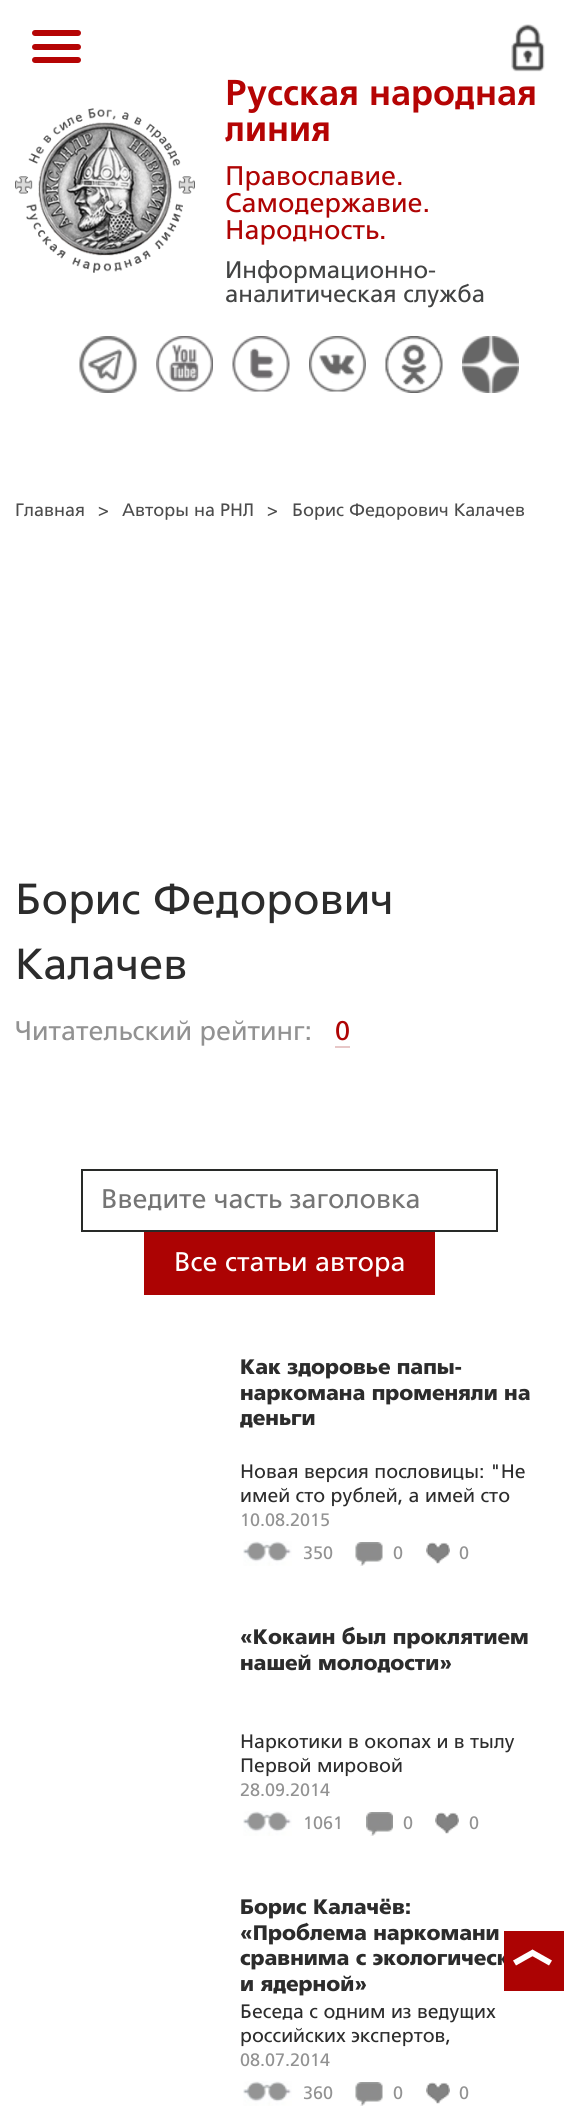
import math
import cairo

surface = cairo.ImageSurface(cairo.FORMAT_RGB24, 578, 2110)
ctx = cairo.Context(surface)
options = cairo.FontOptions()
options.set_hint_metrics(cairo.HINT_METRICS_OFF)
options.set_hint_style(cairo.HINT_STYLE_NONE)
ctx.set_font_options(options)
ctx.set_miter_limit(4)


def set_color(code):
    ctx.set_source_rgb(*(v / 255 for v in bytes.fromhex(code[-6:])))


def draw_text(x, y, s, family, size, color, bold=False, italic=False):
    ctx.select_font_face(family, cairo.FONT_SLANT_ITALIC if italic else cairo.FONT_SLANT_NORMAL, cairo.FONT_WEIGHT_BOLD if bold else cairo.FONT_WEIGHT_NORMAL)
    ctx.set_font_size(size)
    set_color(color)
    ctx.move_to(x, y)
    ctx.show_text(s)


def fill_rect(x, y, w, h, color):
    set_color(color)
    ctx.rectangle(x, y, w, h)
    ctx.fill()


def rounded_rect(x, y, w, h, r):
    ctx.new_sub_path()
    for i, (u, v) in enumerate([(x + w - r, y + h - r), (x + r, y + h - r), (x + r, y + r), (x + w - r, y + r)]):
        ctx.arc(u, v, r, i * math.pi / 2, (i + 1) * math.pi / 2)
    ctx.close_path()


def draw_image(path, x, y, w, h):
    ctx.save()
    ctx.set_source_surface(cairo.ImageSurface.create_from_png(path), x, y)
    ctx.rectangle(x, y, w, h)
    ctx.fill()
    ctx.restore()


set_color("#ffffff")
ctx.paint()
set_color("#b50404")
rounded_rect(32, 30, 49, 6, 3)
ctx.fill()
rounded_rect(32, 44, 49, 6, 3)
ctx.fill()
rounded_rect(32, 57, 49, 6, 3)
ctx.fill()
draw_image("assets/img1.png", 511, 24, 34, 48)
draw_image("assets/img2.png", 79, 336, 58, 57)
draw_image("assets/img3.png", 156, 336, 57, 56)
draw_image("assets/img4.png", 232, 336, 58, 56)
draw_image("assets/img5.png", 309, 336, 57, 56)
draw_image("assets/img6.png", 385, 336, 58, 57)
draw_image("assets/img7.png", 462, 336, 57, 57)
draw_image("assets/img8.png", 15, 108, 180, 165)
draw_text(225, 105, "Русская народная", "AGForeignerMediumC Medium", 36, "#b50404")
draw_text(225, 141, "линия", "AGForeignerMediumC Medium", 36, "#b50404")
draw_text(225, 185, "Православие.", "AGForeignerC", 27, "#af0404")
draw_text(225, 212, "Самодержавие.", "AGForeignerC", 27, "#af0404")
draw_text(225, 239, "Народность.", "AGForeignerC", 27, "#af0404")
draw_text(225, 278, "Информационно-", "AGForeignerC", 24, "#424343")
draw_text(225, 302, "аналитическая служба", "AGForeignerC", 24, "#424343")
draw_text(15, 516, "Главная", "AGForeignerC", 18, "#4c4c4c")
draw_text(98, 516, ">", "AGForeignerC", 18, "#4c4c4c")
draw_text(122, 516, "Авторы на РНЛ", "AGForeignerC", 18, "#4c4c4c")
draw_text(267, 516, ">", "AGForeignerC", 18, "#4c4c4c")
draw_text(292, 516, "Борис Федорович Калачев", "AGForeignerC", 18, "#4c4c4c")
draw_text(15, 914, "Борис Федорович", "AGForeignerC", 43.5, "#2c2c2c")
draw_text(15, 979, "Калачев", "AGForeignerC", 43.5, "#2c2c2c")
draw_text(15, 1040, "Читательский рейтинг:", "AGForeignerC", 27, "#929292")
draw_text(335, 1040, "0", "AGForeignerC", 27, "#af0404")
fill_rect(335, 1046, 15, 2, "#e7c7c7")
ctx.rectangle(82, 1170, 415, 61)
set_color("#282a28")
ctx.stroke()
draw_text(101, 1208, "Введите часть заголовка", "AGForeignerC", 27, "#757575")
fill_rect(144, 1232, 291, 63, "#ac0303")
draw_text(174, 1271, "Все статьи автора", "AGForeignerC", 27, "#ffffff")
draw_text(240, 1374, "Как здоровье папы-", "AGForeignerC", 21, "#2c2c2c", bold=True)
draw_text(240, 1400, "наркомана променяли на", "AGForeignerC", 21, "#2c2c2c", bold=True)
draw_text(240, 1425, "деньги", "AGForeignerC", 21, "#2c2c2c", bold=True)
draw_text(240, 1478, "Новая версия пословицы: \"Не", "AGForeignerC", 19.5, "#2c2c2c")
draw_text(240, 1502, "имей сто рублей, а имей сто", "AGForeignerC", 19.5, "#2c2c2c")
draw_text(240, 1526, "10.08.2015", "AGForeignerC", 18, "#929292")
draw_image("assets/img9.png", 243, 1541, 49, 25)
draw_text(303, 1559, "350", "AGForeignerC", 18, "#929292")
draw_image("assets/img10.png", 355, 1542, 28, 24)
draw_text(393, 1559, "0", "AGForeignerC", 18, "#929292")
draw_image("assets/img11.png", 426, 1542, 24, 22)
draw_text(459, 1559, "0", "AGForeignerC", 18, "#929292")
draw_text(240, 1644, "«Кокаин был проклятием", "AGForeignerC", 21, "#2c2c2c", bold=True)
draw_text(240, 1670, "нашей молодости»", "AGForeignerC", 21, "#2c2c2c", bold=True)
draw_text(240, 1748, "Наркотики в окопах и в тылу", "AGForeignerC", 19.5, "#2c2c2c")
draw_text(240, 1772, "Первой мировой", "AGForeignerC", 19.5, "#2c2c2c")
draw_text(240, 1796, "28.09.2014", "AGForeignerC", 18, "#929292")
draw_image("assets/img9.png", 243, 1811, 49, 25)
draw_text(303, 1829, "1061", "AGForeignerC", 18, "#929292")
draw_image("assets/img12.png", 366, 1812, 27, 24)
draw_text(403, 1829, "0", "AGForeignerC", 18, "#929292")
draw_image("assets/img11.png", 435, 1812, 24, 22)
draw_text(469, 1829, "0", "AGForeignerC", 18, "#929292")
draw_text(240, 1914, "Борис Калачёв:", "AGForeignerC", 21, "#2c2c2c", bold=True)
draw_text(240, 1940, "«Проблема наркомани", "AGForeignerC", 21, "#2c2c2c", bold=True)
draw_text(240, 1965, "сравнима с экологическ", "AGForeignerC", 21, "#2c2c2c", bold=True)
draw_text(240, 1991, "и ядерной»", "AGForeignerC", 21, "#2c2c2c", bold=True)
draw_text(240, 2018, "Беседа с одним из ведущих", "AGForeignerC", 19.5, "#2c2c2c")
draw_text(240, 2042, "российских экспертов,", "AGForeignerC", 19.5, "#2c2c2c")
draw_text(240, 2066, "08.07.2014", "AGForeignerC", 18, "#929292")
draw_image("assets/img9.png", 243, 2081, 49, 25)
draw_text(303, 2099, "360", "AGForeignerC", 18, "#929292")
draw_image("assets/img10.png", 355, 2082, 28, 24)
draw_text(393, 2099, "0", "AGForeignerC", 18, "#929292")
draw_image("assets/img11.png", 426, 2082, 24, 22)
draw_text(459, 2099, "0", "AGForeignerC", 18, "#929292")
fill_rect(504, 1931, 60, 60, "#ac0303")
set_color("#ffffff")
ctx.new_path()
ctx.move_to(513, 1960.5)
ctx.line_to(532.5, 1949.5)
ctx.line_to(535.5, 1954.5)
ctx.line_to(516, 1965.5)
ctx.close_path()
ctx.fill()
ctx.new_path()
ctx.move_to(532.5, 1949.5)
ctx.line_to(552, 1960.5)
ctx.line_to(549, 1965.5)
ctx.line_to(529.5, 1954.5)
ctx.close_path()
ctx.fill()
surface.write_to_png("output.png")
